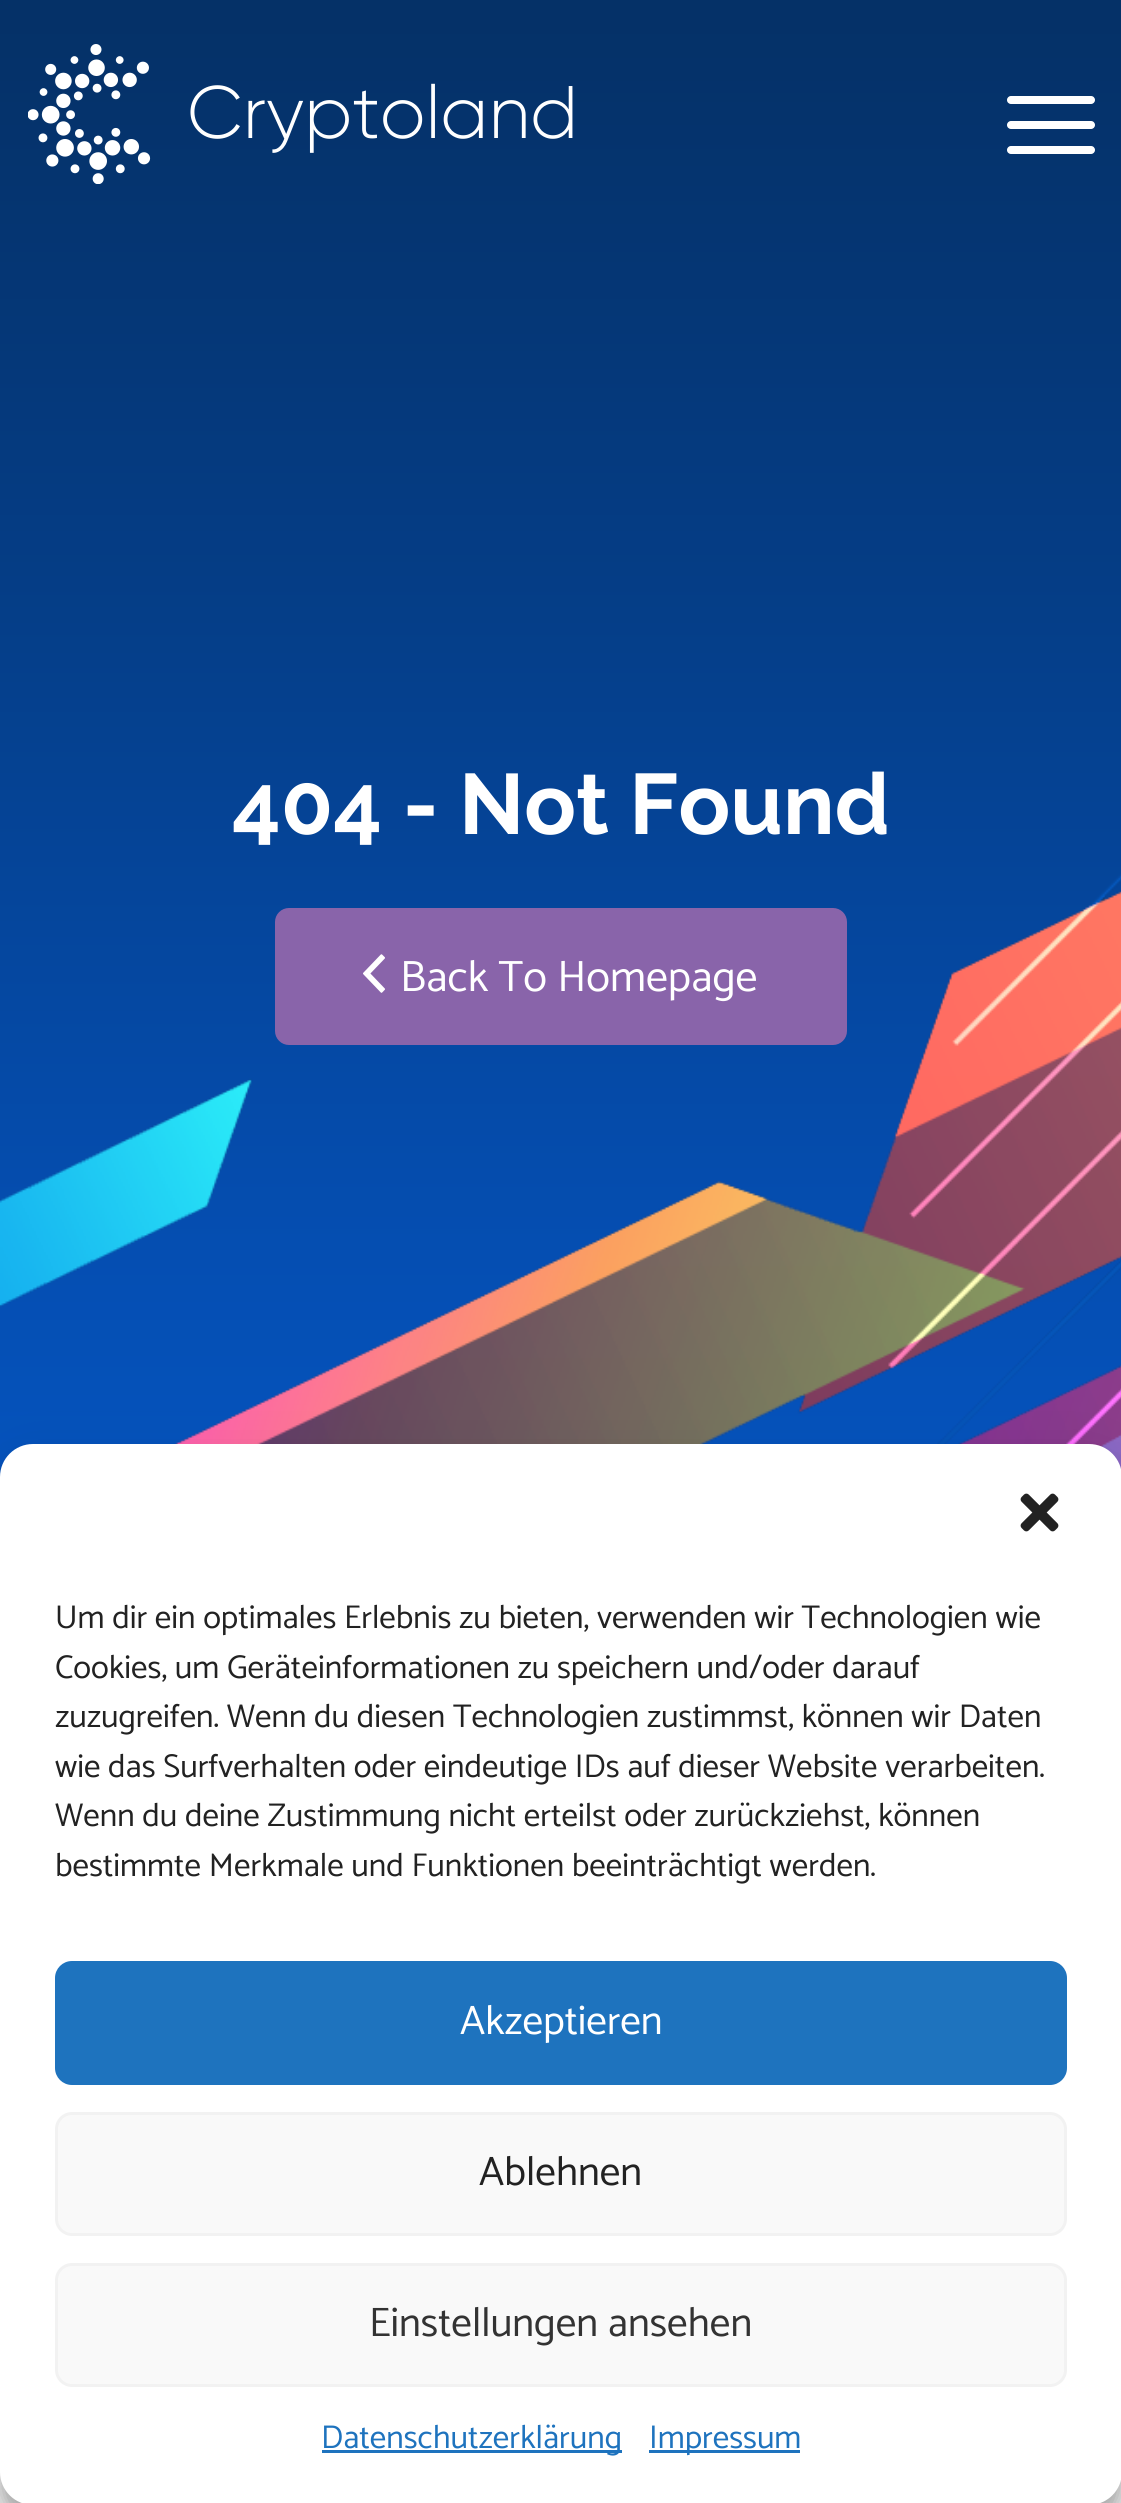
import math
import cairo

surface = cairo.ImageSurface(cairo.FORMAT_RGB24, 1121, 2503)
ctx = cairo.Context(surface)
options = cairo.FontOptions()
options.set_hint_metrics(cairo.HINT_METRICS_OFF)
options.set_hint_style(cairo.HINT_STYLE_NONE)
ctx.set_font_options(options)
ctx.set_miter_limit(4)


def set_color(code):
    ctx.set_source_rgb(*(v / 255 for v in bytes.fromhex(code[-6:])))


def draw_text(x, y, s, family, size, color, bold=False, italic=False):
    ctx.select_font_face(family, cairo.FONT_SLANT_ITALIC if italic else cairo.FONT_SLANT_NORMAL, cairo.FONT_WEIGHT_BOLD if bold else cairo.FONT_WEIGHT_NORMAL)
    ctx.set_font_size(size)
    set_color(color)
    ctx.move_to(x, y)
    ctx.show_text(s)


def fill_rect(x, y, w, h, color):
    set_color(color)
    ctx.rectangle(x, y, w, h)
    ctx.fill()


def rounded_rect(x, y, w, h, r):
    ctx.new_sub_path()
    for i, (u, v) in enumerate([(x + w - r, y + h - r), (x + r, y + h - r), (x + r, y + r), (x + w - r, y + r)]):
        ctx.arc(u, v, r, i * math.pi / 2, (i + 1) * math.pi / 2)
    ctx.close_path()


def draw_shadow(x, y, w, h, r, blur, alpha):
    ctx.push_group_with_content(cairo.CONTENT_ALPHA)
    ctx.set_operator(cairo.OPERATOR_SOURCE)
    for i in range(15, -16, -2):
        e = blur * i / 6
        if min(w, h) + 2 * e > 0:
            ctx.set_source_rgba(0, 0, 0, alpha * math.erfc((i - 1) / 8.5) / 2)
            rounded_rect(x - e, y - e, w + 2 * e, h + 2 * e, max(0, min(r + e + blur * .6, min(w, h) / 2 + e)))
            ctx.fill()
    ctx.mask(ctx.pop_group())


def draw_image(path, x, y, w, h):
    ctx.save()
    ctx.set_source_surface(cairo.ImageSurface.create_from_png(path), x, y)
    ctx.rectangle(x, y, w, h)
    ctx.fill()
    ctx.restore()


set_color("#ffffff")
ctx.paint()
draw_image("assets/img2.png", 0, 0, 1121, 1477)
draw_image("assets/img1.png", 28, 44, 123, 140)
draw_text(187, 138, "Cryptoland", "Gilroy Light", 74.25, "#ffffff")
rounded_rect(1007, 96, 88, 8, 4)
ctx.fill()
rounded_rect(1007, 121, 88, 8, 4)
ctx.fill()
rounded_rect(1007, 146, 88, 8, 4)
ctx.fill()
draw_text(232, 834, "404 - Not Found", "Raleway", 85.5, "#ffffff", bold=True)
set_color("#8964aa")
rounded_rect(275, 908, 572, 137, 14)
ctx.fill()
draw_image("assets/img3.png", 363, 954, 22, 39)
draw_text(400, 991, "Back To Homepage", "Catamaran", 44, "#ffffff")
set_color("#000000")
draw_shadow(0, 1460, 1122, 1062, 33, 8, 0.23)
draw_shadow(0, 1471, 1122, 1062, 33, 27.5, 0.19)
set_color("#ffffff")
rounded_rect(0, 1444, 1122, 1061, 33)
ctx.fill()
draw_image("assets/img4.png", 1020, 1493, 39, 39)
draw_text(55, 1628, "Um dir ein optimales Erlebnis zu bieten, verwenden wir Technologien wie", "Catamaran", 33, "#222222")
draw_text(55, 1678, "Cookies, um Geräteinformationen zu speichern und/oder darauf", "Catamaran", 33, "#222222")
draw_text(55, 1727, "zuzugreifen. Wenn du diesen Technologien zustimmst, können wir Daten", "Catamaran", 33, "#222222")
draw_text(55, 1777, "wie das Surfverhalten oder eindeutige IDs auf dieser Website verarbeiten.", "Catamaran", 33, "#222222")
draw_text(55, 1826, "Wenn du deine Zustimmung nicht erteilst oder zurückziehst, können", "Catamaran", 33, "#222222")
draw_text(55, 1876, "bestimmte Merkmale und Funktionen beeinträchtigt werden.", "Catamaran", 33, "#222222")
set_color("#1e73be")
rounded_rect(56.5, 1962.5, 1009, 121, 15.5)
ctx.fill_preserve()
ctx.set_line_width(3)
ctx.stroke()
draw_text(460, 2034, "Akzeptieren", "Catamaran", 41.25, "#ffffff")
set_color("#f9f9f9")
rounded_rect(56.5, 2113.5, 1009, 121, 15.5)
ctx.fill_preserve()
set_color("#f2f2f2")
ctx.stroke()
draw_text(479, 2185, "Ablehnen", "Catamaran", 41.25, "#222222")
set_color("#f9f9f9")
rounded_rect(56.5, 2264.5, 1009, 121, 15.5)
ctx.fill_preserve()
set_color("#f2f2f2")
ctx.stroke()
draw_text(369, 2336, "Einstellungen ansehen", "Catamaran", 41.25, "#333333")
fill_rect(322, 2450, 300, 3, "#1e73be")
draw_text(321, 2448, "Datenschutzerklärung", "Catamaran", 33, "#1e73be")
fill_rect(649, 2450, 151, 3, "#1e73be")
draw_text(649, 2448, "Impressum", "Catamaran", 33, "#1e73be")
surface.write_to_png("output.png")
